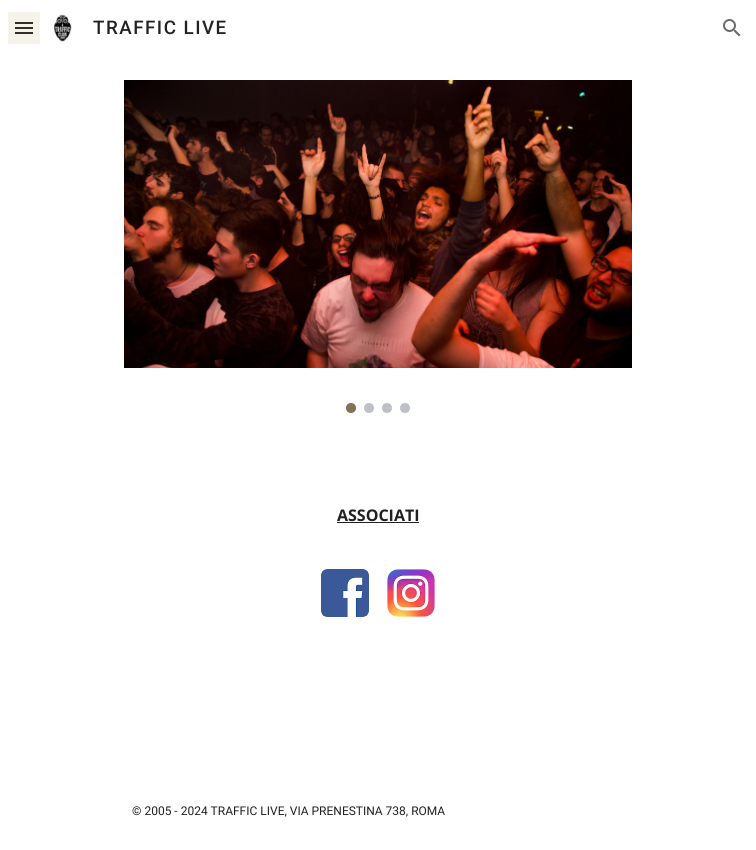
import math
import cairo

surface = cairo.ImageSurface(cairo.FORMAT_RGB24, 756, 850)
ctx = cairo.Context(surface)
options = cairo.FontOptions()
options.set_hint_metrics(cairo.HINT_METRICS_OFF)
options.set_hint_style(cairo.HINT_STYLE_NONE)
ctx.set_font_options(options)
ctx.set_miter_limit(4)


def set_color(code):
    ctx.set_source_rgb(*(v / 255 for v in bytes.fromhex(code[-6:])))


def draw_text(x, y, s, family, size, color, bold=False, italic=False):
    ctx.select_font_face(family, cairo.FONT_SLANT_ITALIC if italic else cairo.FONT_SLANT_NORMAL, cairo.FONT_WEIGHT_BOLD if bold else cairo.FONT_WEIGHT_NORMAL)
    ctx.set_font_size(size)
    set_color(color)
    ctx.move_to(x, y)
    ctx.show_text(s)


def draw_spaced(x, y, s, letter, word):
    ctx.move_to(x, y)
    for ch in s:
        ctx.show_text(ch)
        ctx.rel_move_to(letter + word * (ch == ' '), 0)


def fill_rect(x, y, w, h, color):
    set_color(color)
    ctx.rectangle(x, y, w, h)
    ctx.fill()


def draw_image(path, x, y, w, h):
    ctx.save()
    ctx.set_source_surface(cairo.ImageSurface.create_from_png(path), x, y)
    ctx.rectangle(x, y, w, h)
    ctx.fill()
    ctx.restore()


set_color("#ffffff")
ctx.paint()
fill_rect(8, 12, 32, 32, "#f6f3ea")
fill_rect(15, 22, 18, 2, "#332f27")
fill_rect(15, 27, 18, 2, "#332f27")
fill_rect(15, 32, 18, 2, "#332f27")
draw_image("assets/img1.png", 54, 14, 18, 28)
ctx.select_font_face("Roboto Medium")
ctx.set_font_size(18.75)
set_color("#212121")
draw_spaced(93, 34, "TRAFFIC LIVE", 1.5, 0)
draw_image("assets/img2.png", 723, 19, 18, 18)
draw_image("assets/img3.png", 124, 80, 508, 288)
set_color("#827153")
ctx.arc(351, 408, 5, 0, 2 * math.pi)
ctx.fill()
set_color("#bdc1c6")
ctx.arc(369, 408, 5, 0, 2 * math.pi)
ctx.fill()
ctx.arc(387, 408, 5, 0, 2 * math.pi)
ctx.fill()
ctx.arc(405, 408, 5, 0, 2 * math.pi)
ctx.fill()
draw_text(337, 521, "ASSOCIATI", "Open Sans", 16, "#212121", bold=True)
fill_rect(337, 522, 82, 1, "#212121")
draw_image("assets/img4.png", 321, 569, 48, 48)
draw_image("assets/img5.png", 387, 569, 48, 48)
draw_text(132, 815, "© 2005 - 2024 TRAFFIC LIVE, VIA PRENESTINA 738, ROMA", "Roboto", 12, "#212121")
surface.write_to_png("output.png")
